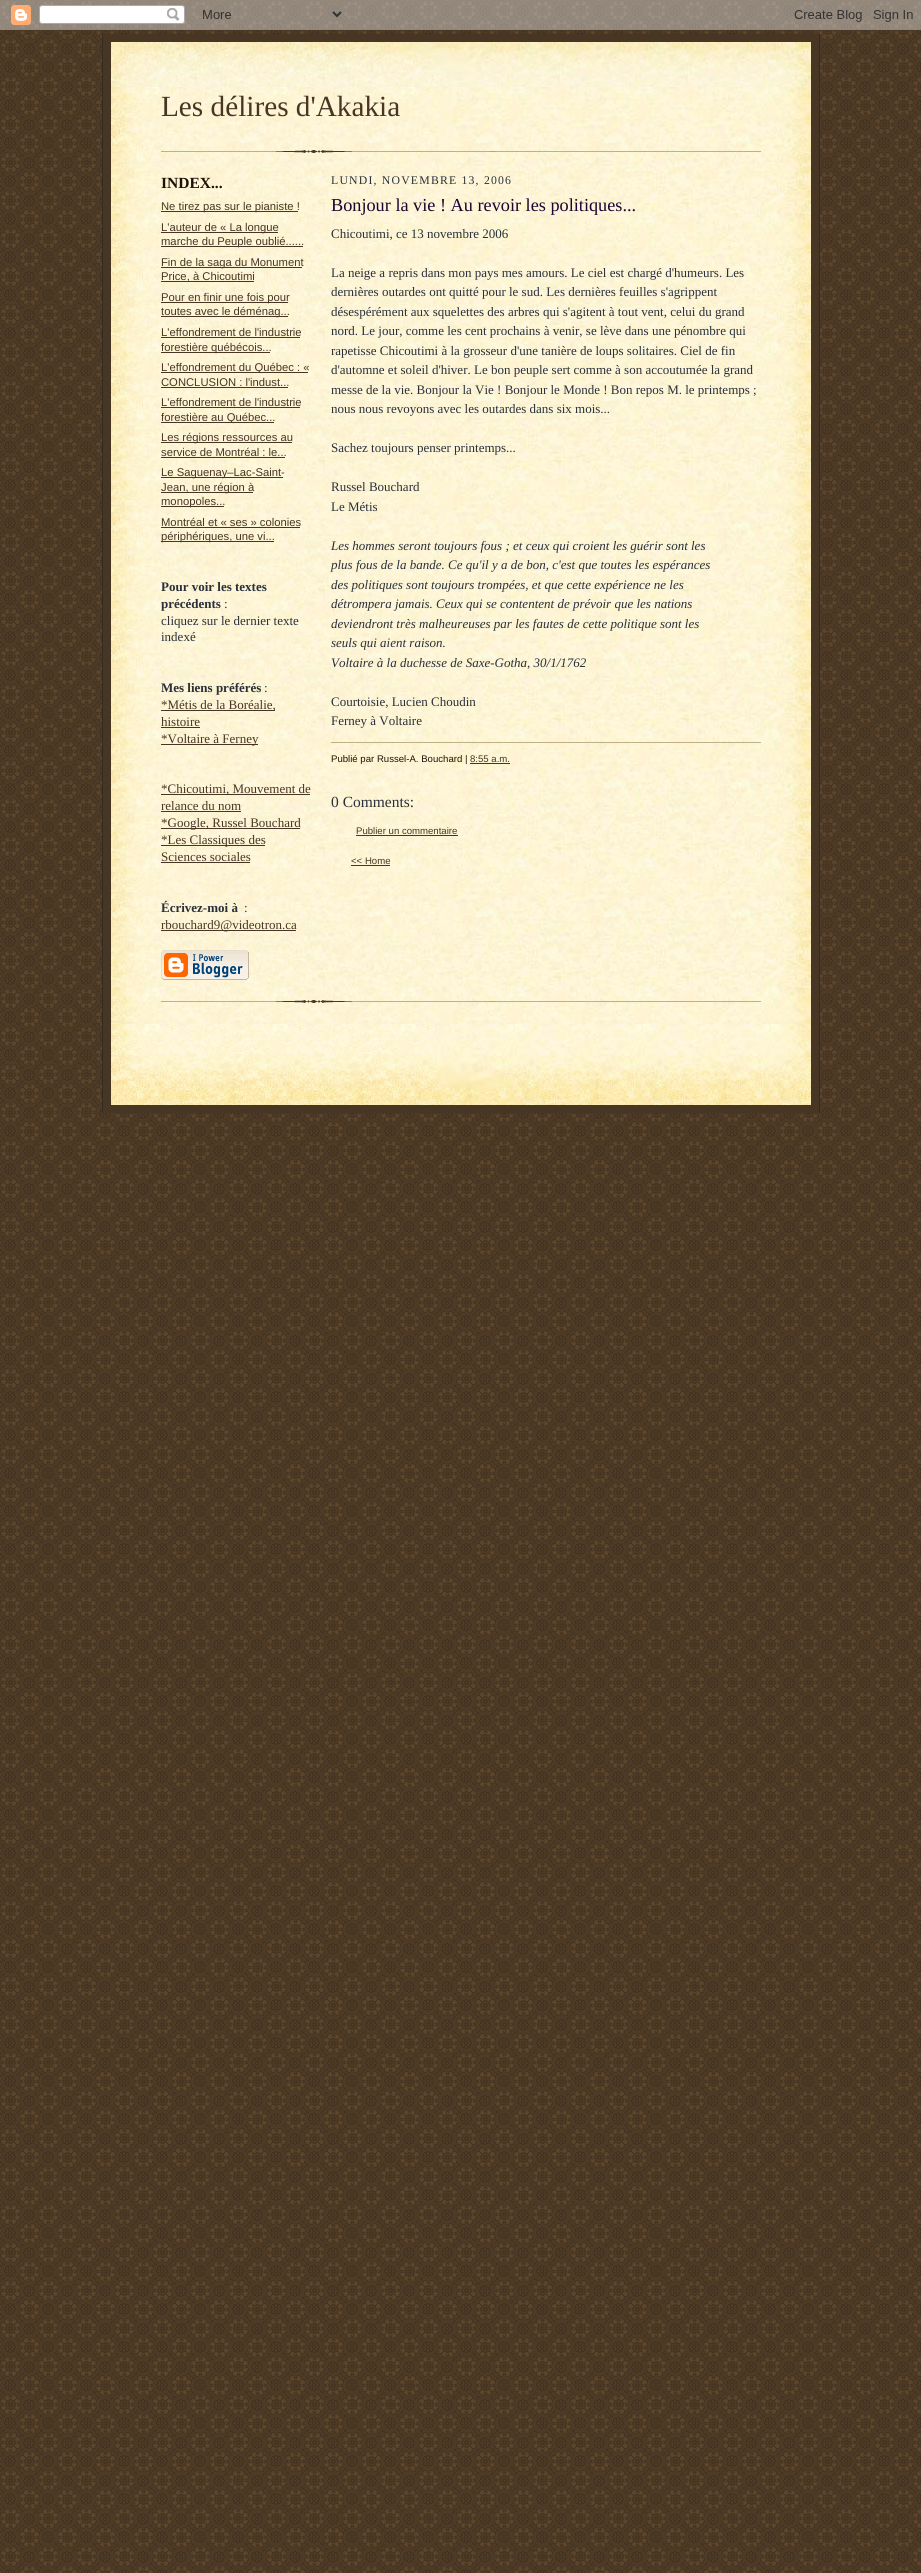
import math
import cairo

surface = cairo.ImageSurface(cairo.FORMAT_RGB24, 921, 2573)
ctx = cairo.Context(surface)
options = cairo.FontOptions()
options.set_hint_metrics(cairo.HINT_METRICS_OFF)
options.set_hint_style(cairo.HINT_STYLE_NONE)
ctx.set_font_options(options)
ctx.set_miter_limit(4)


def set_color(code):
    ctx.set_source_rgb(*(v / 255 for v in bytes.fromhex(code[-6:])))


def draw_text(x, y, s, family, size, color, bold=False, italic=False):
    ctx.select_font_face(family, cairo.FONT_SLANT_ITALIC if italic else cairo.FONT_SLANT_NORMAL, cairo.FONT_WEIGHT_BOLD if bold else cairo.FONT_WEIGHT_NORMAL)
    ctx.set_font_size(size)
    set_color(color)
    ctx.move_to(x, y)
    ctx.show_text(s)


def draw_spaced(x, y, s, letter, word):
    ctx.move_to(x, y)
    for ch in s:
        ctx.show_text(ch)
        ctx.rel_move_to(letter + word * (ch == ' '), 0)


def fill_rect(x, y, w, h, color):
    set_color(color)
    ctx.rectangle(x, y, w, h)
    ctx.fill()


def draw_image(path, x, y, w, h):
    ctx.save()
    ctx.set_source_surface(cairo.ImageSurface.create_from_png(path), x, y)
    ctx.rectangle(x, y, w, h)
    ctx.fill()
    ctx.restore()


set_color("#ffffff")
ctx.paint()
draw_image("assets/img1.png", 0, 0, 921, 2573)
draw_image("assets/img2.png", 0, 0, 921, 30)
fill_rect(103, 34, 716, 1079, "#473624")
fill_rect(819, 34, 1, 1079, "#332a24")
fill_rect(102, 34, 1, 1079, "#332a24")
draw_image("assets/img3.png", 111, 42, 700, 45)
draw_image("assets/img4.png", 111, 87, 700, 937)
draw_text(161, 116, "Les délires d'Akakia", "Liberation Serif", 29.25, "#473624")
draw_image("assets/img5.png", 161, 150, 600, 3)
draw_text(161, 188, "INDEX...", "Liberation Serif", 15.5, "#211104", bold=True)
fill_rect(161, 211, 137, 1, "#473624")
draw_text(161, 210, "Ne tirez pas sur le pianiste !", "Liberation Sans", 11.25, "#473624")
fill_rect(161, 232, 117, 1, "#473624")
draw_text(161, 231, "L'auteur de « La longue", "Liberation Sans", 11.25, "#473624")
fill_rect(161, 246, 142, 1, "#473624")
draw_text(161, 245, "marche du Peuple oublié......", "Liberation Sans", 11.25, "#473624")
fill_rect(161, 267, 141, 1, "#473624")
draw_text(161, 266, "Fin de la saga du Monument", "Liberation Sans", 11.25, "#473624")
fill_rect(161, 281, 93, 1, "#473624")
draw_text(161, 280, "Price, à Chicoutimi", "Liberation Sans", 11.25, "#473624")
fill_rect(161, 302, 127, 1, "#473624")
draw_text(161, 301, "Pour en finir une fois pour", "Liberation Sans", 11.25, "#473624")
fill_rect(161, 316, 127, 1, "#473624")
draw_text(161, 315, "toutes avec le déménag...", "Liberation Sans", 11.25, "#473624")
draw_text(161, 336, "L'effondrement de l'industrie", "Liberation Sans", 11.25, "#473624")
fill_rect(161, 337, 139, 1, "#473624")
fill_rect(161, 352, 109, 1, "#473624")
draw_text(161, 351, "forestière québécois...", "Liberation Sans", 11.25, "#473624")
fill_rect(161, 372, 147, 1, "#473624")
draw_text(161, 371, "L'effondrement du Québec : «", "Liberation Sans", 11.25, "#473624")
draw_text(161, 386, "CONCLUSION : l'indust...", "Liberation Sans", 11.25, "#473624")
fill_rect(161, 387, 127, 1, "#473624")
draw_text(161, 406, "L'effondrement de l'industrie", "Liberation Sans", 11.25, "#473624")
fill_rect(161, 407, 139, 1, "#473624")
fill_rect(161, 422, 113, 1, "#473624")
draw_text(161, 421, "forestière au Québec...", "Liberation Sans", 11.25, "#473624")
fill_rect(161, 442, 131, 1, "#473624")
draw_text(161, 441, "Les régions ressources au", "Liberation Sans", 11.25, "#473624")
draw_text(161, 456, "service de Montréal : le...", "Liberation Sans", 11.25, "#473624")
fill_rect(161, 457, 124, 1, "#473624")
fill_rect(161, 477, 122, 1, "#473624")
draw_text(161, 476, "Le Saguenay–Lac-Saint-", "Liberation Sans", 11.25, "#473624")
fill_rect(161, 492, 92, 1, "#473624")
draw_text(161, 491, "Jean, une région à", "Liberation Sans", 11.25, "#473624")
fill_rect(161, 506, 63, 1, "#473624")
draw_text(161, 505, "monopoles...", "Liberation Sans", 11.25, "#473624")
draw_text(161, 526, "Montréal et « ses » colonies", "Liberation Sans", 11.25, "#473624")
fill_rect(161, 527, 139, 1, "#473624")
fill_rect(161, 541, 113, 1, "#473624")
draw_text(161, 540, "périphériques, une vi...", "Liberation Sans", 11.25, "#473624")
draw_text(161, 591, "Pour voir les textes", "Liberation Serif", 13, "#29303b", bold=True)
draw_text(161, 608, "précédents", "Liberation Serif", 13, "#29303b", bold=True)
draw_text(224, 608, ":", "Liberation Serif", 13, "#29303b")
draw_text(161, 625, "cliquez sur le dernier texte", "Liberation Serif", 13, "#29303b")
draw_text(161, 641, "indexé", "Liberation Serif", 13, "#29303b")
draw_text(161, 692, "Mes liens préférés", "Liberation Serif", 13, "#29303b", bold=True)
draw_text(264, 692, ":", "Liberation Serif", 13, "#29303b")
fill_rect(161, 710, 114, 1, "#473624")
draw_text(161, 709, "*Métis de la Boréalie,", "Liberation Serif", 13, "#473624")
draw_text(161, 726, "histoire", "Liberation Serif", 13, "#473624")
fill_rect(161, 727, 39, 1, "#473624")
fill_rect(161, 744, 97, 1, "#473624")
draw_text(161, 743, "*Voltaire à Ferney", "Liberation Serif", 13, "#473624")
fill_rect(161, 794, 149, 1, "#473624")
draw_text(161, 793, "*Chicoutimi, Mouvement de", "Liberation Serif", 13, "#473624")
draw_text(161, 810, "relance du nom", "Liberation Serif", 13, "#473624")
fill_rect(161, 811, 80, 1, "#473624")
fill_rect(161, 828, 139, 1, "#473624")
draw_text(161, 827, "*Google, Russel Bouchard", "Liberation Serif", 13, "#473624")
fill_rect(161, 845, 104, 1, "#473624")
draw_text(161, 844, "*Les Classiques des", "Liberation Serif", 13, "#473624")
draw_text(161, 861, "Sciences sociales", "Liberation Serif", 13, "#473624")
fill_rect(161, 862, 89, 1, "#473624")
draw_text(161, 912, "Écrivez-moi à", "Liberation Serif", 13, "#29303b", bold=True)
draw_text(244, 912, ":", "Liberation Serif", 13, "#29303b")
fill_rect(161, 930, 135, 1, "#473624")
draw_text(161, 929, "rbouchard9@videotron.ca", "Liberation Serif", 13, "#473624")
draw_image("assets/img6.png", 161, 950, 88, 30)
ctx.set_font_size(11.75)
set_color("#29303b")
draw_spaced(331, 184, "LUNDI, NOVEMBRE 13, 2006", 1.2, 0)
draw_text(331, 211, "Bonjour la vie ! Au revoir les politiques...", "Liberation Serif", 18.25, "#1b0431")
draw_text(331, 238, "Chicoutimi, ce 13 novembre 2006", "Liberation Serif", 13, "#29303b")
draw_text(331, 277, "La neige a repris dans mon pays mes amours. Le ciel est chargé d'humeurs. Les", "Liberation Serif", 13, "#29303b")
draw_text(331, 296, "dernières outardes ont quitté pour le sud. Les dernières feuilles s'agrippent", "Liberation Serif", 13, "#29303b")
draw_text(331, 316, "désespérément aux squelettes des arbres qui s'agitent à tout vent, celui du grand", "Liberation Serif", 13, "#29303b")
draw_text(331, 335, "nord. Le jour, comme les cent prochains à venir, se lève dans une pénombre qui", "Liberation Serif", 13, "#29303b")
draw_text(331, 355, "rapetisse Chicoutimi à la grosseur d'une tanière de loups solitaires. Ciel de fin", "Liberation Serif", 13, "#29303b")
draw_text(331, 374, "d'automne et soleil d'hiver. Le bon peuple sert comme à son accoutumée la grand", "Liberation Serif", 13, "#29303b")
draw_text(331, 394, "messe de la vie. Bonjour la Vie ! Bonjour le Monde ! Bon repos M. le printemps ;", "Liberation Serif", 13, "#29303b")
draw_text(331, 413, "nous nous revoyons avec les outardes dans six mois...", "Liberation Serif", 13, "#29303b")
draw_text(331, 452, "Sachez toujours penser printemps...", "Liberation Serif", 13, "#29303b")
draw_text(331, 491, "Russel Bouchard", "Liberation Serif", 13, "#29303b")
draw_text(331, 511, "Le Métis", "Liberation Serif", 13, "#29303b")
draw_text(331, 550, "Les hommes seront toujours fous ; et ceux qui croient les guérir sont les", "Liberation Serif", 13, "#29303b", italic=True)
draw_text(331, 569, "plus fous de la bande. Ce qu'il y a de bon, c'est que toutes les espérances", "Liberation Serif", 13, "#29303b", italic=True)
draw_text(331, 589, "des politiques sont toujours trompées, et que cette expérience ne les", "Liberation Serif", 13, "#29303b", italic=True)
draw_text(331, 608, "détrompera jamais. Ceux qui se contentent de prévoir que les nations", "Liberation Serif", 13, "#29303b", italic=True)
draw_text(331, 628, "deviendront très malheureuses par les fautes de cette politique sont les", "Liberation Serif", 13, "#29303b", italic=True)
draw_text(331, 647, "seuls qui aient raison.", "Liberation Serif", 13, "#29303b", italic=True)
draw_text(331, 667, "Voltaire à la duchesse de Saxe-Gotha, 30/1/1762", "Liberation Serif", 13, "#29303b", italic=True)
draw_text(331, 706, "Courtoisie, Lucien Choudin", "Liberation Serif", 13, "#29303b")
draw_text(331, 725, "Ferney à Voltaire", "Liberation Serif", 13, "#29303b")
fill_rect(331, 742, 430, 1, "#bfb186")
draw_text(331, 762, "Publié par Russel-A. Bouchard |", "Liberation Sans", 9.6, "#211104")
draw_text(470, 762, "8:55 a.m.", "Liberation Sans", 9.6, "#473624")
fill_rect(470, 763, 40, 1, "#473624")
draw_text(331, 807, "0 Comments:", "Liberation Serif", 15.5, "#29303b")
draw_text(356, 834, "Publier un commentaire", "Liberation Sans", 9.6, "#473624")
fill_rect(356, 835, 102, 1, "#473624")
draw_text(351, 864, "<< Home", "Liberation Sans", 9.6, "#473624")
fill_rect(351, 865, 39, 1, "#473624")
draw_image("assets/img7.png", 161, 1000, 600, 3)
draw_image("assets/img8.png", 111, 1024, 700, 81)
surface.write_to_png("output.png")
